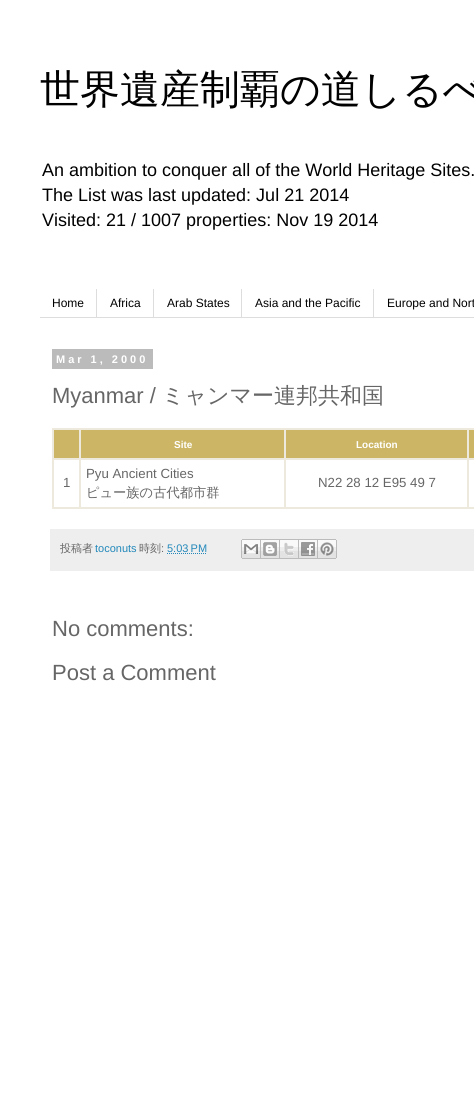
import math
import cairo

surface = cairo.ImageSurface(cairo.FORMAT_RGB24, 474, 1111)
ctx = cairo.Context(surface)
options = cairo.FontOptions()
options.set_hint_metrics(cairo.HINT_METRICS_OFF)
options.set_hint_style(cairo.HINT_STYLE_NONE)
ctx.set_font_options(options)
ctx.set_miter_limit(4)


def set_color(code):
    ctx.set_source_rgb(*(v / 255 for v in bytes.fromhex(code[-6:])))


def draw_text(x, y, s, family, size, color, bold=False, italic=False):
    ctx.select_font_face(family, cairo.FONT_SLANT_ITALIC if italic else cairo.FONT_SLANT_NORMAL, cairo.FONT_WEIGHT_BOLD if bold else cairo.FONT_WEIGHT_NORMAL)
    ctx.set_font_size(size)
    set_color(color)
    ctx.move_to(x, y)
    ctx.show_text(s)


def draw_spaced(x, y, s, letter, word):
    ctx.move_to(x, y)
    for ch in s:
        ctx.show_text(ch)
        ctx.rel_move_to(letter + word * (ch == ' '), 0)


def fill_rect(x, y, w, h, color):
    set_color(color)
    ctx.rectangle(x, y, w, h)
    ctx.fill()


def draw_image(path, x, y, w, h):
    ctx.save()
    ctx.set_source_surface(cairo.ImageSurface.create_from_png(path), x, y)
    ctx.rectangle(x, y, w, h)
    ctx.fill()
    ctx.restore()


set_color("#ffffff")
ctx.paint()
draw_text(40, 103, "世界遺産制覇の道しるべ", "WenQuanYi Zen Hei Medium", 40, "#000000")
draw_text(42, 176, "An ambition to conquer all of the World Heritage Sites.", "Liberation Sans", 18, "#000000")
draw_text(42, 201, "The List was last updated: Jul 21 2014", "Liberation Sans", 18, "#000000")
draw_text(42, 226, "Visited: 21 / 1007 properties: Nov 19 2014", "Liberation Sans", 18, "#000000")
fill_rect(40, 317, 434, 1, "#dddddd")
fill_rect(96, 289, 1, 28, "#dddddd")
draw_text(52, 307, "Home", "Liberation Sans", 12, "#000000")
fill_rect(153, 289, 1, 28, "#dddddd")
draw_text(110, 307, "Africa", "Liberation Sans", 12, "#000000")
fill_rect(241, 289, 1, 28, "#dddddd")
draw_text(167, 307, "Arab States", "Liberation Sans", 12, "#000000")
fill_rect(373, 289, 1, 28, "#dddddd")
draw_text(255, 307, "Asia and the Pacific", "Liberation Sans", 12, "#000000")
draw_text(387, 307, "Europe and Nort", "Liberation Sans", 12, "#000000")
fill_rect(52, 349, 101, 20, "#bbbbbb")
ctx.select_font_face("Liberation Sans", cairo.FONT_SLANT_NORMAL, cairo.FONT_WEIGHT_BOLD)
ctx.set_font_size(11)
set_color("#ffffff")
draw_spaced(56, 363, "Mar 1, 2000", 3, 0)
draw_text(52, 403, "Myanmar /", "Liberation Sans", 22, "#666666")
draw_text(162, 403, "ミャンマー連邦共和国", "WenQuanYi Zen Hei Medium", 22, "#666666")
ctx.rectangle(52.5, 428.5, 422, 80)
set_color("#eee9dd")
ctx.set_line_width(1)
ctx.stroke()
fill_rect(54, 430, 420, 28, "#ccb666")
ctx.rectangle(53.5, 429.5, 26, 29)
set_color("#eee9dd")
ctx.stroke()
ctx.rectangle(80.5, 429.5, 204, 29)
ctx.stroke()
draw_text(174, 448, "Site", "Liberation Sans", 10, "#ffffff", bold=True)
ctx.rectangle(285.5, 429.5, 182, 29)
set_color("#eee9dd")
ctx.stroke()
draw_text(356, 448, "Location", "Liberation Sans", 10, "#ffffff", bold=True)
ctx.rectangle(468.5, 429.5, 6, 29)
set_color("#eee9dd")
ctx.stroke()
ctx.rectangle(53.5, 459.5, 26, 48)
ctx.stroke()
draw_text(63, 487, "1", "Liberation Sans", 13.25, "#666666")
ctx.rectangle(80.5, 459.5, 204, 48)
set_color("#eee9dd")
ctx.stroke()
draw_text(86, 478, "Pyu Ancient Cities", "Liberation Sans", 13.25, "#666666")
draw_text(86, 497, "ピュー族の古代都市群", "WenQuanYi Zen Hei Medium", 13.25, "#666666")
ctx.rectangle(285.5, 459.5, 182, 48)
set_color("#eee9dd")
ctx.stroke()
draw_text(318, 487, "N22 28 12 E95 49 7", "Liberation Sans", 13.25, "#666666")
ctx.rectangle(468.5, 459.5, 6, 48)
set_color("#eee9dd")
ctx.stroke()
fill_rect(50, 529, 424, 42, "#eeeeee")
draw_text(60, 552, "投稿者", "WenQuanYi Zen Hei Medium", 11, "#666666")
draw_text(95, 552, "toconuts", "Liberation Sans", 11, "#2288bb")
draw_text(139, 552, "時刻", "WenQuanYi Zen Hei Medium", 11, "#666666")
draw_text(161, 552, ":", "Liberation Sans", 11, "#666666")
draw_text(167, 552, "5:03 PM", "Liberation Sans", 11, "#2288bb")
ctx.new_path()
ctx.move_to(167, 553.5)
ctx.line_to(206, 553.5)
ctx.set_dash([1, 1])
ctx.stroke()
draw_image("assets/img1.png", 241, 539, 20, 20)
draw_image("assets/img2.png", 261, 539, 19, 20)
draw_image("assets/img3.png", 280, 539, 19, 20)
draw_image("assets/img4.png", 299, 539, 19, 20)
draw_image("assets/img5.png", 318, 539, 19, 20)
draw_text(52, 636, "No comments:", "Liberation Sans", 22, "#666666")
draw_text(52, 680, "Post a Comment", "Liberation Sans", 22, "#666666")
surface.write_to_png("output.png")
